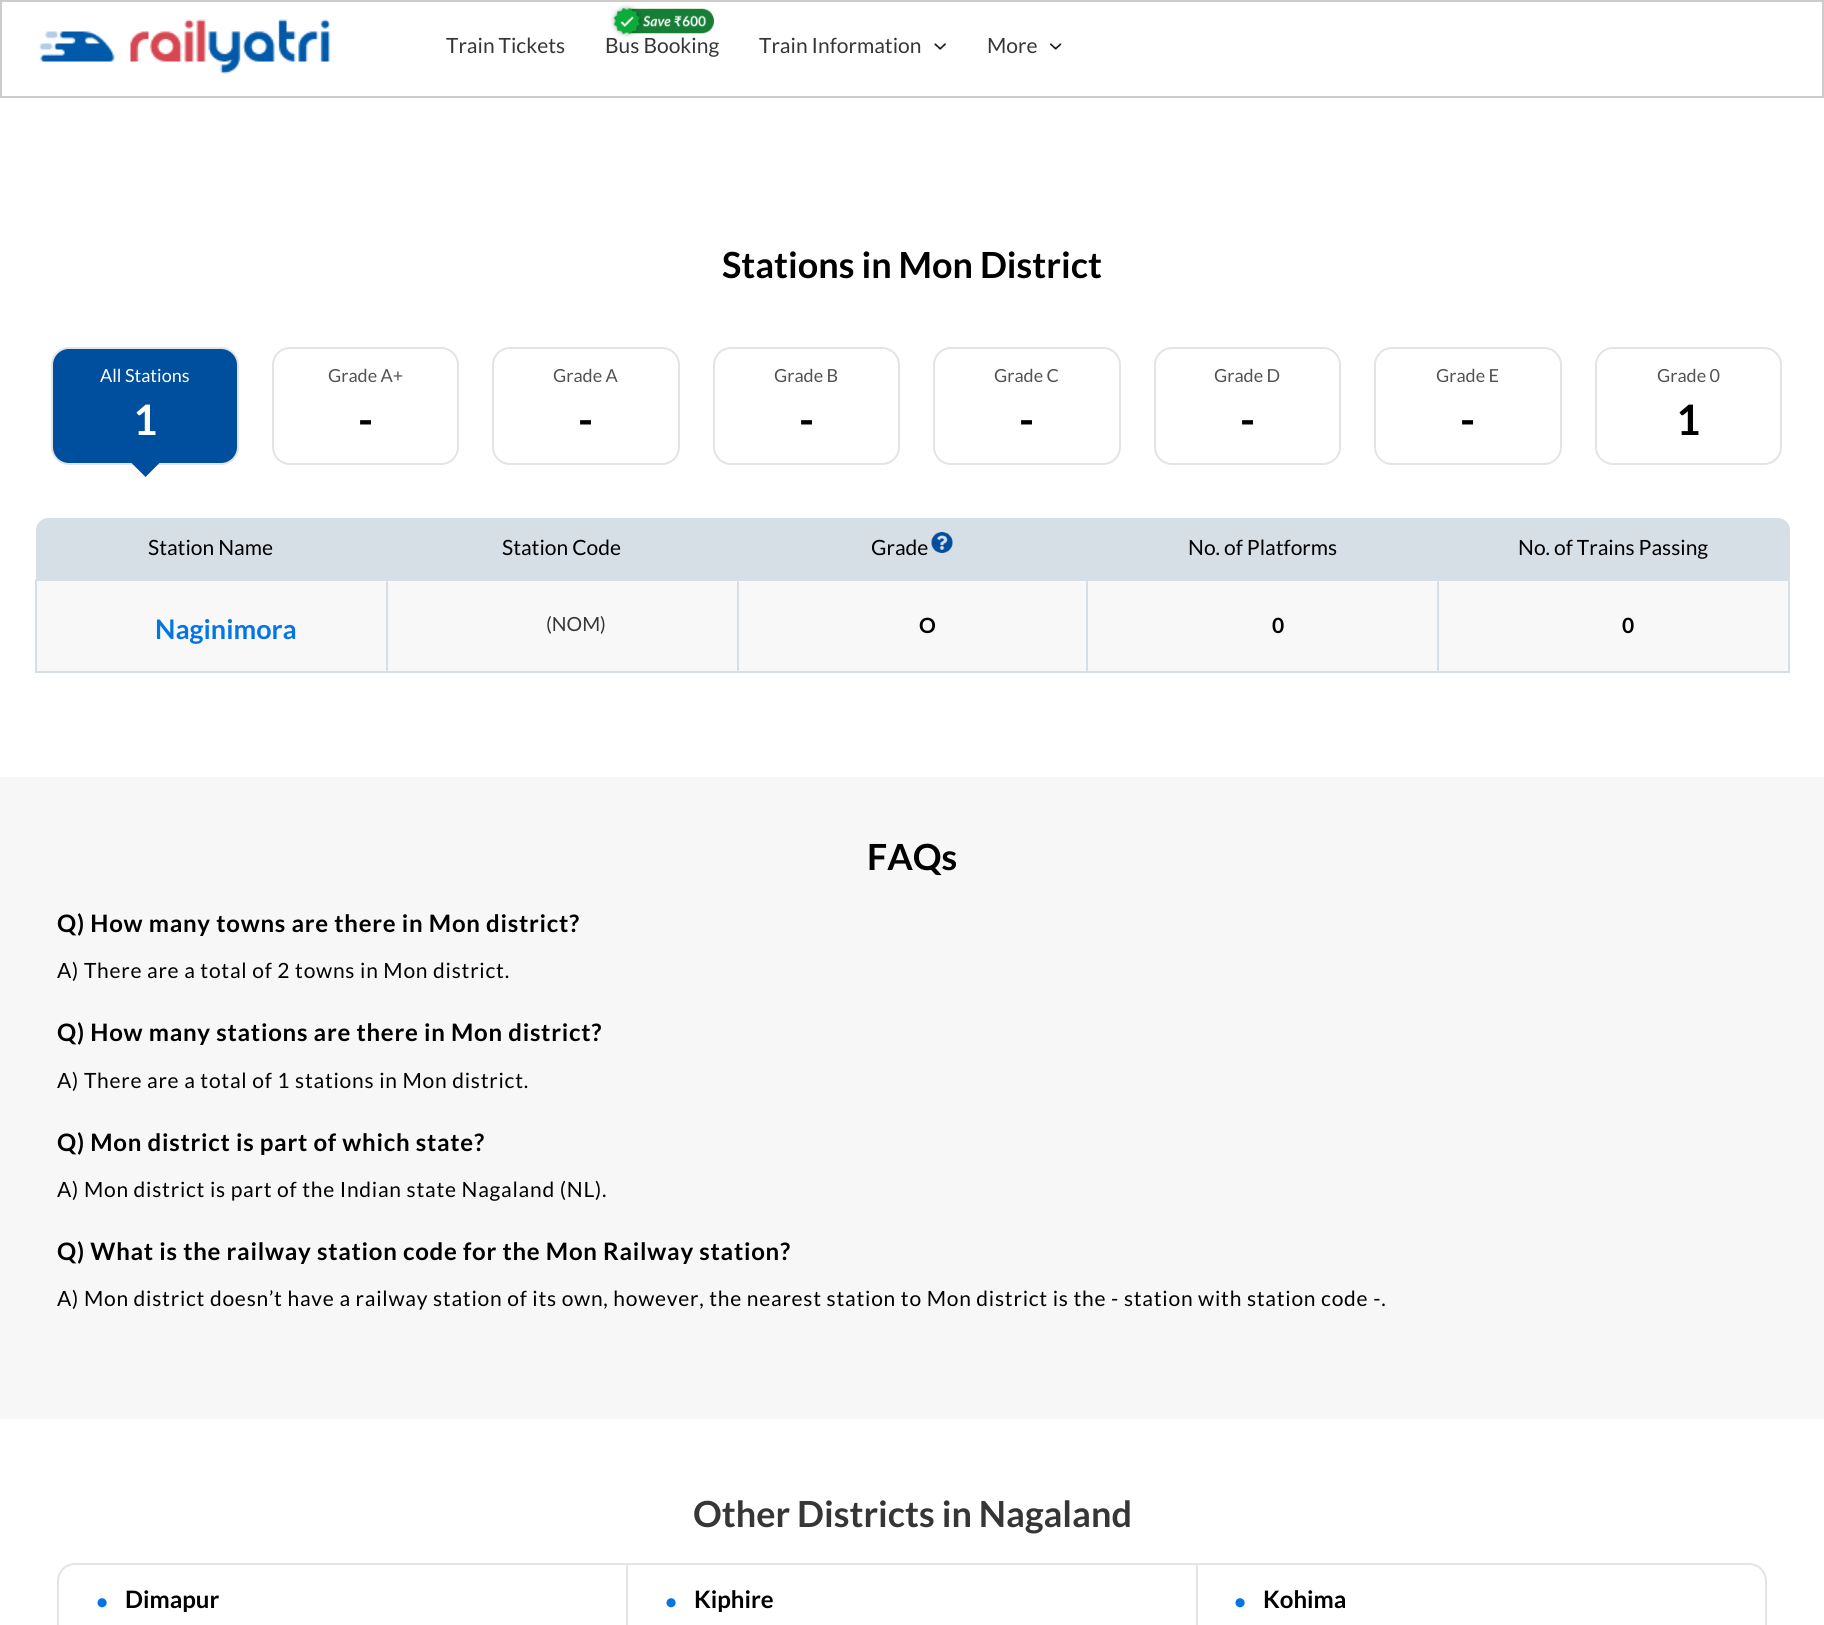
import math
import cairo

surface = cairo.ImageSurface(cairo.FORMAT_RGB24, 1824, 1625)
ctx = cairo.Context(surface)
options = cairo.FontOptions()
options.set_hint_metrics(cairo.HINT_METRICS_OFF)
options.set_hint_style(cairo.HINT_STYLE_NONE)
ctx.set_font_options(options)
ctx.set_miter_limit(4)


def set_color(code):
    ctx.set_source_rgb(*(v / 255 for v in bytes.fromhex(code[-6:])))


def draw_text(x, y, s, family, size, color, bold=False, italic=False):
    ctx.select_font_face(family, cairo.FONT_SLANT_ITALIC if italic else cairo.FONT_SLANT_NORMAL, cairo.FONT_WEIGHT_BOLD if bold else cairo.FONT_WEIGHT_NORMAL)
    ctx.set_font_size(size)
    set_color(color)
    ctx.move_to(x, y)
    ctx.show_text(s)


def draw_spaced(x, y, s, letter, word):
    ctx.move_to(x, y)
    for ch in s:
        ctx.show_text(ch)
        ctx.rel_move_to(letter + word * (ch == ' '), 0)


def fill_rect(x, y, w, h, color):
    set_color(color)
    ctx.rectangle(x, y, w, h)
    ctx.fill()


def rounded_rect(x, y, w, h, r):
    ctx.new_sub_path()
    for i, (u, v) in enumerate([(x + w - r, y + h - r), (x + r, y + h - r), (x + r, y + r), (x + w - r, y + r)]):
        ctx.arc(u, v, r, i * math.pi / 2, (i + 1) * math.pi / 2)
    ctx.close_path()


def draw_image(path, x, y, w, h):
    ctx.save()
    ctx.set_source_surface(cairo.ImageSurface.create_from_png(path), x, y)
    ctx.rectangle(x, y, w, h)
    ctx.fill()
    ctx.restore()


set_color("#ffffff")
ctx.paint()
ctx.rectangle(1, 1, 1822, 96)
set_color("#cccccc")
ctx.stroke()
draw_image("assets/img1.png", 39, 19, 292, 55)
draw_text(446, 53, "Train Tickets", "Lato", 21, "#363636")
draw_text(605, 53, "Bus Booking", "Lato", 21, "#363636")
draw_image("assets/img2.png", 610, 4, 104, 34)
draw_text(759, 53, "Train Information", "Lato", 21, "#363636")
draw_image("assets/img3.png", 934, 43, 12, 7)
draw_text(987, 53, "More", "Lato", 21, "#363636")
draw_image("assets/img4.png", 1050, 43, 12, 7)
draw_text(722, 278, "Stations in Mon District", "Lato", 36, "#000000", bold=True)
set_color("#004f9e")
rounded_rect(52, 348, 186, 116, 17)
ctx.fill_preserve()
set_color("#e4e4e4")
ctx.stroke()
draw_text(100, 382, "All Stations", "Lato", 18, "#ffffff")
draw_text(133, 435, "1", "Lato", 42, "#ffffff", bold=True)
set_color("#004f9e")
ctx.new_path()
ctx.move_to(130.5, 462)
ctx.line_to(160.5, 462)
ctx.line_to(145.5, 477)
ctx.close_path()
ctx.fill()
rounded_rect(273, 348, 185, 116, 17)
set_color("#e4e4e4")
ctx.stroke()
draw_text(328, 382, "Grade A+", "Lato", 18, "#525252")
draw_text(358, 435, "-", "Lato", 42, "#000000", bold=True)
rounded_rect(493, 348, 186, 116, 17)
set_color("#e4e4e4")
ctx.stroke()
draw_text(553, 382, "Grade A", "Lato", 18, "#525252")
draw_text(578, 435, "-", "Lato", 42, "#000000", bold=True)
rounded_rect(714, 348, 185, 116, 17)
set_color("#e4e4e4")
ctx.stroke()
draw_text(774, 382, "Grade B", "Lato", 18, "#525252")
draw_text(799, 435, "-", "Lato", 42, "#000000", bold=True)
rounded_rect(934, 348, 186, 116, 17)
set_color("#e4e4e4")
ctx.stroke()
draw_text(994, 382, "Grade C", "Lato", 18, "#525252")
draw_text(1019, 435, "-", "Lato", 42, "#000000", bold=True)
rounded_rect(1155, 348, 185, 116, 17)
set_color("#e4e4e4")
ctx.stroke()
draw_text(1214, 382, "Grade D", "Lato", 18, "#525252")
draw_text(1240, 435, "-", "Lato", 42, "#000000", bold=True)
rounded_rect(1375, 348, 186, 116, 17)
set_color("#e4e4e4")
ctx.stroke()
draw_text(1436, 382, "Grade E", "Lato", 18, "#525252")
draw_text(1460, 435, "-", "Lato", 42, "#000000", bold=True)
rounded_rect(1596, 348, 185, 116, 17)
set_color("#e4e4e4")
ctx.stroke()
draw_text(1657, 382, "Grade 0", "Lato", 18, "#525252")
draw_text(1676, 435, "1", "Lato", 42, "#000000", bold=True)
set_color("#d6dfe5")
ctx.new_path()
ctx.move_to(48, 518)
ctx.line_to(386, 518)
ctx.line_to(386, 579)
ctx.line_to(36, 579)
ctx.line_to(36, 530)
ctx.curve_to(36, 523.5, 41.5, 518, 48, 518)
ctx.close_path()
ctx.fill()
draw_text(148, 555, "Station Name", "Lato", 21, "#000000")
fill_rect(386, 518, 1053, 61, "#d6dfe5")
draw_text(502, 555, "Station Code", "Lato", 21, "#000000")
draw_text(871, 555, "Grade", "Lato", 21, "#000000")
draw_image("assets/img5.png", 931, 532, 22, 21)
draw_text(1188, 555, "No. of Platforms", "Lato", 21, "#000000")
set_color("#d6dfe5")
ctx.new_path()
ctx.move_to(1439, 518)
ctx.line_to(1778, 518)
ctx.curve_to(1784.5, 518, 1790, 523.5, 1790, 530)
ctx.line_to(1790, 579)
ctx.line_to(1439, 579)
ctx.close_path()
ctx.fill()
draw_text(1518, 555, "No. of Trains Passing", "Lato", 21, "#000000")
fill_rect(37, 581, 1751, 90, "#f8f8f8")
fill_rect(1437, 579, 353, 2, "#d6dfe5")
fill_rect(1788, 579, 2, 93, "#d6dfe5")
fill_rect(1437, 671, 353, 2, "#d6dfe5")
fill_rect(1437, 579, 2, 93, "#d6dfe5")
fill_rect(1086, 579, 353, 2, "#d6dfe5")
fill_rect(1086, 671, 353, 2, "#d6dfe5")
fill_rect(1086, 579, 2, 93, "#d6dfe5")
fill_rect(737, 579, 351, 2, "#d6dfe5")
fill_rect(737, 671, 351, 2, "#d6dfe5")
fill_rect(737, 579, 2, 93, "#d6dfe5")
fill_rect(386, 579, 352, 2, "#d6dfe5")
fill_rect(386, 671, 352, 2, "#d6dfe5")
fill_rect(386, 579, 2, 93, "#d6dfe5")
fill_rect(35, 579, 352, 2, "#d6dfe5")
fill_rect(35, 671, 352, 2, "#d6dfe5")
fill_rect(35, 579, 2, 93, "#d6dfe5")
draw_text(155, 639, "Naginimora", "Lato", 27, "#0475e5", bold=True)
draw_text(546, 631, "(NOM)", "Lato", 19.5, "#363636")
draw_text(919, 633, "O", "Lato", 21, "#000000", bold=True)
draw_text(1272, 633, "0", "Lato", 21, "#000000", bold=True)
draw_text(1622, 633, "0", "Lato", 21, "#000000", bold=True)
fill_rect(0, 777, 1824, 642, "#f7f7f7")
draw_text(867, 870, "FAQs", "Lato", 36, "#000000", bold=True)
ctx.set_font_size(24)
draw_spaced(57, 932, "Q) How many towns are there in Mon district?", 0.75, 0)
ctx.select_font_face("Lato")
ctx.set_font_size(21)
draw_spaced(57, 978, "A) There are a total of 2 towns in Mon district.", 0.75, 0)
ctx.select_font_face("Lato", cairo.FONT_SLANT_NORMAL, cairo.FONT_WEIGHT_BOLD)
ctx.set_font_size(24)
draw_spaced(57, 1041, "Q) How many stations are there in Mon district?", 0.75, 0)
ctx.select_font_face("Lato")
ctx.set_font_size(21)
draw_spaced(57, 1088, "A) There are a total of 1 stations in Mon district.", 0.75, 0)
ctx.select_font_face("Lato", cairo.FONT_SLANT_NORMAL, cairo.FONT_WEIGHT_BOLD)
ctx.set_font_size(24)
draw_spaced(57, 1151, "Q) Mon district is part of which state?", 0.75, 0)
ctx.select_font_face("Lato")
ctx.set_font_size(21)
draw_spaced(57, 1197, "A) Mon district is part of the Indian state Nagaland (NL).", 0.75, 0)
ctx.select_font_face("Lato", cairo.FONT_SLANT_NORMAL, cairo.FONT_WEIGHT_BOLD)
ctx.set_font_size(24)
draw_spaced(57, 1260, "Q) What is the railway station code for the Mon Railway station?", 0.75, 0)
ctx.select_font_face("Lato")
ctx.set_font_size(21)
draw_spaced(57, 1306, "A) Mon district doesn’t have a railway station of its own, however, the nearest station to Mon district is the - station with station code -.", 0.75, 0)
draw_text(693, 1527, "Other Districts in Nagaland", "Lato", 36, "#363636", bold=True)
rounded_rect(58, 1564, 1708, 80, 17)
set_color("#e4e4e4")
ctx.stroke()
fill_rect(626, 1565, 2, 60, "#e4e4e4")
draw_text(96, 1609, "•", "Lato", 21, "#0475e5", bold=True)
draw_text(125, 1608, "Dimapur", "Lato", 24, "#000000", bold=True)
fill_rect(1196, 1565, 2, 60, "#e4e4e4")
draw_text(665, 1609, "•", "Lato", 21, "#0475e5", bold=True)
draw_text(694, 1608, "Kiphire", "Lato", 24, "#000000", bold=True)
draw_text(1234, 1609, "•", "Lato", 21, "#0475e5", bold=True)
draw_text(1263, 1608, "Kohima", "Lato", 24, "#000000", bold=True)
surface.write_to_png("output.png")
